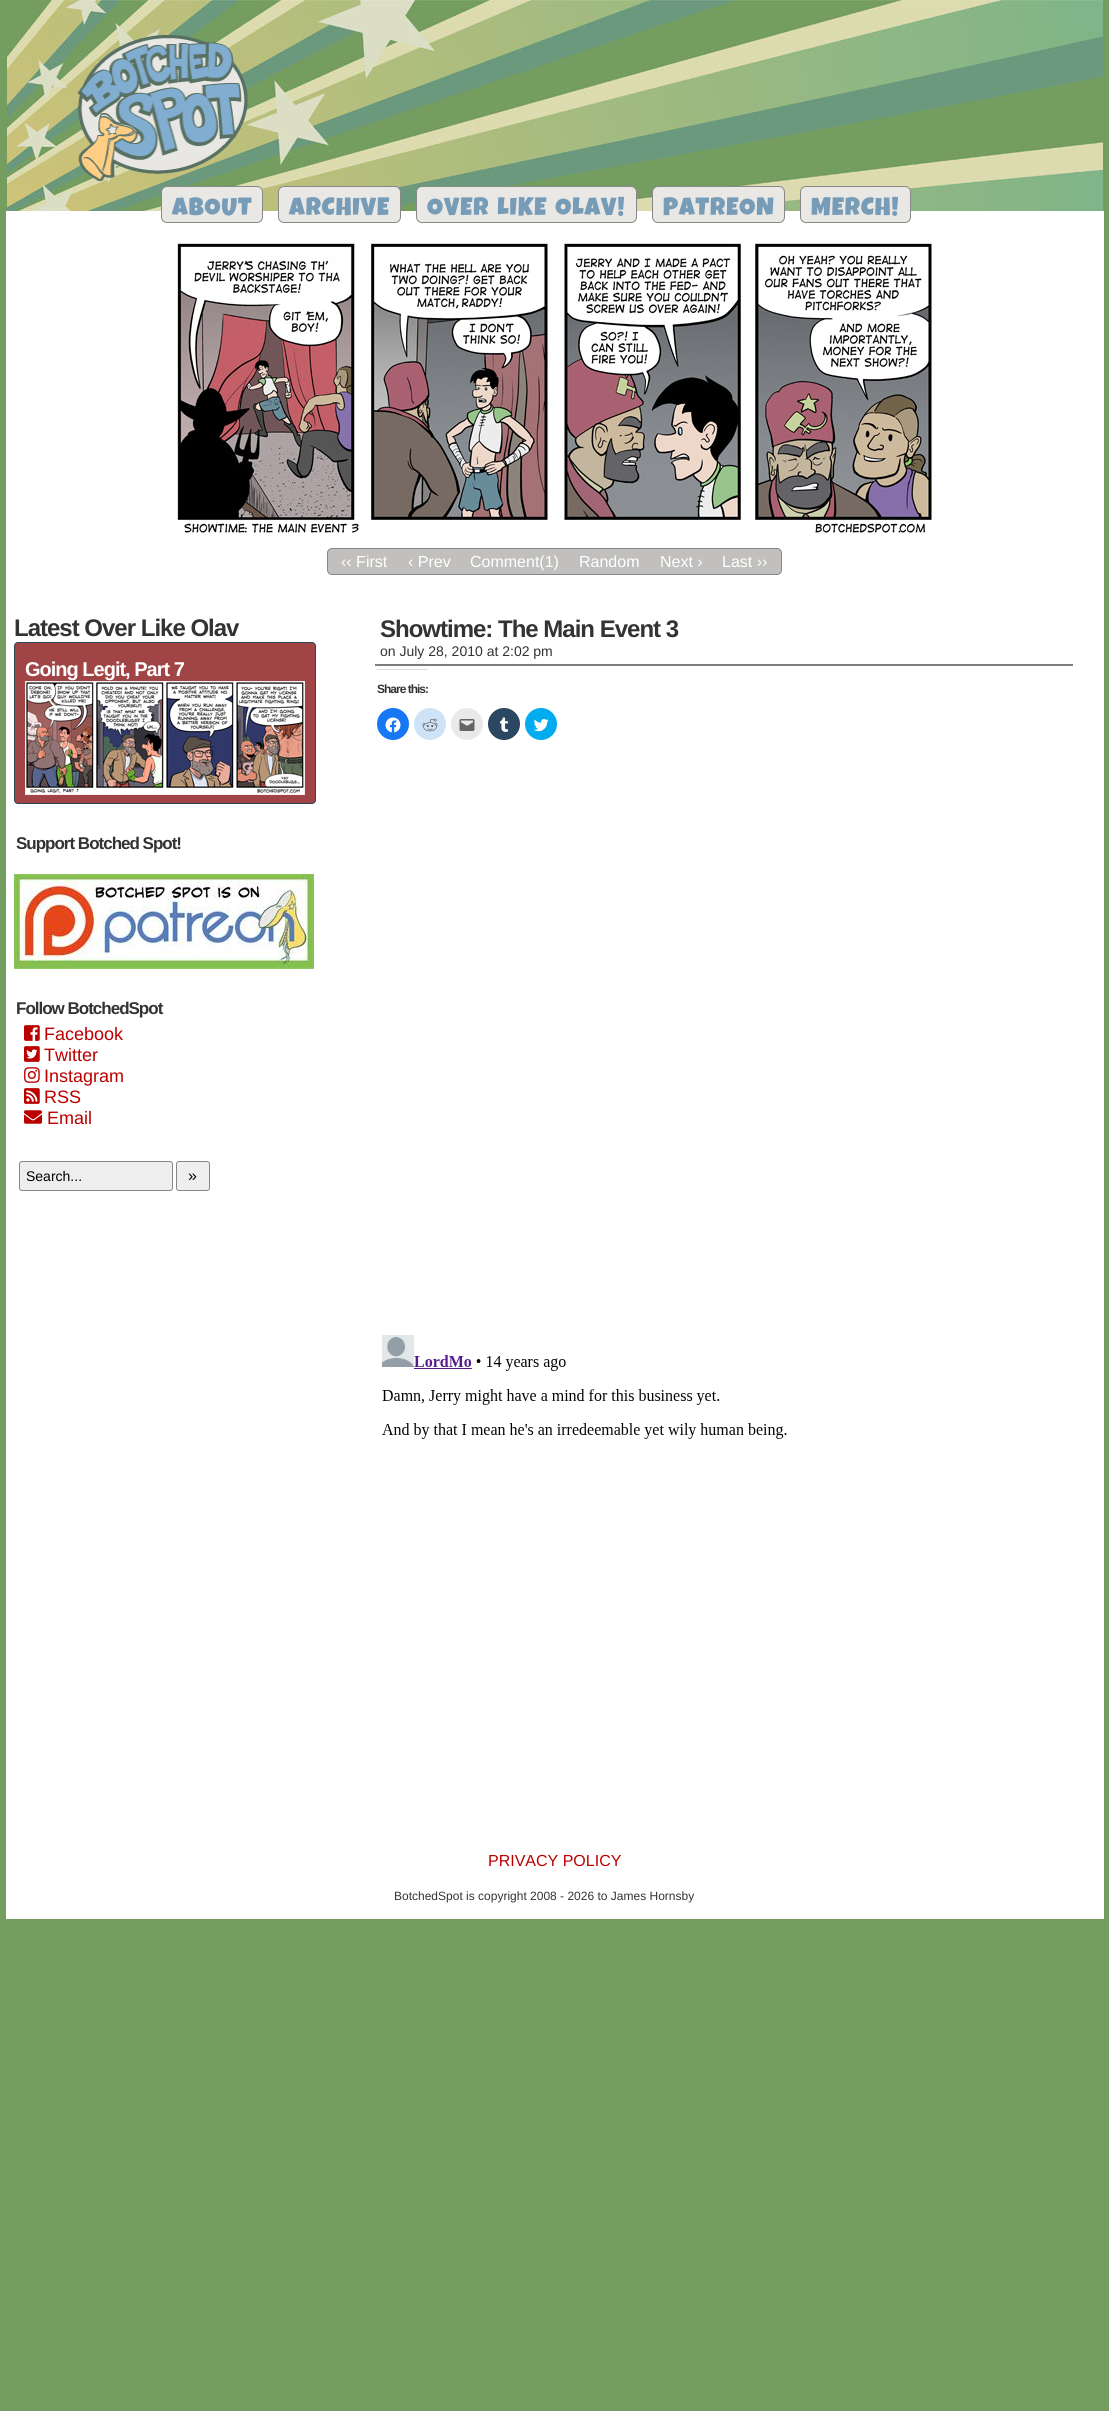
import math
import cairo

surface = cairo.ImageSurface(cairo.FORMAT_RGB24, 1109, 2411)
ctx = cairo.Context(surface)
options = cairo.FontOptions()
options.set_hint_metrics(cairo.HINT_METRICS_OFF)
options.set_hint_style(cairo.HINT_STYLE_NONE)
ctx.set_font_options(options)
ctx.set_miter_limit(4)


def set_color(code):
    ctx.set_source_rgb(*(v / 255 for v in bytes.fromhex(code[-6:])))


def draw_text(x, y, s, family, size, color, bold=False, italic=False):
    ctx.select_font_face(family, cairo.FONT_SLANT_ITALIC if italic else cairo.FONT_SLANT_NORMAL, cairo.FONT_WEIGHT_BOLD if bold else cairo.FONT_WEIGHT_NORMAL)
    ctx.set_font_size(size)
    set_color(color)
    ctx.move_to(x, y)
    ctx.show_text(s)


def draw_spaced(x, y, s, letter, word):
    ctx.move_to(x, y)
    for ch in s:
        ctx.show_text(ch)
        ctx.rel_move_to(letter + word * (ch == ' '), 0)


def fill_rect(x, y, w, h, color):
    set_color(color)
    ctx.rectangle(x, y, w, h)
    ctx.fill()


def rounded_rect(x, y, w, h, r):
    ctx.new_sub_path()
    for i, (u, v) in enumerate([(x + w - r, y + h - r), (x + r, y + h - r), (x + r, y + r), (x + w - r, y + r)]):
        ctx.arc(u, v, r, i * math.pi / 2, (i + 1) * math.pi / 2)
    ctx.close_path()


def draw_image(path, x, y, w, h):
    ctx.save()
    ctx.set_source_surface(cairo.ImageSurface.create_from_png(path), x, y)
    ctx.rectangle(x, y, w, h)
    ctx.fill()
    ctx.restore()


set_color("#749d60")
ctx.paint()
draw_image("assets/img1.png", 6, 0, 1098, 211)
draw_image("assets/img2.png", 77, 35, 171, 146)
fill_rect(6, 211, 1098, 1708, "#ffffff")
set_color("#eae8e5")
rounded_rect(161.5, 186.5, 101, 36, 5.5)
ctx.fill_preserve()
set_color("#888888")
ctx.set_line_width(1)
ctx.stroke()
ctx.select_font_face("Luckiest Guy")
ctx.set_font_size(25)
set_color("#769cb7")
draw_spaced(172, 215, "ABOUT", 1, 0)
set_color("#eae8e5")
rounded_rect(278.5, 186.5, 122, 36, 5.5)
ctx.fill_preserve()
set_color("#888888")
ctx.stroke()
set_color("#769cb7")
draw_spaced(289, 215, "ARCHIVE", 1, 0)
set_color("#eae8e5")
rounded_rect(416.5, 186.5, 220, 36, 5.5)
ctx.fill_preserve()
set_color("#888888")
ctx.stroke()
set_color("#769cb7")
draw_spaced(427, 215, "OVER LIKE OLAV!", 1, 2)
set_color("#eae8e5")
rounded_rect(652.5, 186.5, 132, 36, 5.5)
ctx.fill_preserve()
set_color("#888888")
ctx.stroke()
set_color("#769cb7")
draw_spaced(663, 215, "PATREON", 1, 0)
set_color("#eae8e5")
rounded_rect(800.5, 186.5, 110, 36, 5.5)
ctx.fill_preserve()
set_color("#888888")
ctx.stroke()
set_color("#769cb7")
draw_spaced(811, 215, "MERCH!", 1, 0)
draw_image("assets/img3.png", 176, 240, 759, 294)
set_color("#c1c0be")
rounded_rect(327.5, 548.5, 454, 26, 4.5)
ctx.fill_preserve()
set_color("#888888")
ctx.stroke()
draw_text(341, 567, "‹‹ First", "Liberation Sans", 16, "#ffffff")
draw_text(408, 567, "‹ Prev", "Liberation Sans", 16, "#ffffff")
draw_text(470, 567, "Comment(1)", "Liberation Sans", 16, "#ffffff")
draw_text(579, 567, "Random", "Liberation Sans", 16, "#ffffff")
draw_text(660, 567, "Next ›", "Liberation Sans", 16, "#ffffff")
draw_text(722, 567, "Last ››", "Liberation Sans", 16, "#ffffff")
ctx.select_font_face("Liberation Sans", cairo.FONT_SLANT_NORMAL, cairo.FONT_WEIGHT_BOLD)
ctx.set_font_size(24)
set_color("#333333")
draw_spaced(14, 636, "Latest Over Like Olav", -1, 0)
set_color("#a04445")
rounded_rect(14.5, 642.5, 301, 161, 3.5)
ctx.fill_preserve()
set_color("#2e4556")
ctx.stroke()
ctx.set_font_size(20)
set_color("#ffffff")
draw_spaced(25, 676, "Going Legit, Part 7", -1, 0)
draw_image("assets/img4.png", 25, 681, 280, 114)
ctx.set_font_size(17)
set_color("#333333")
draw_spaced(16, 849, "Support Botched Spot!", -1, 0)
draw_image("assets/img5.png", 14, 874, 300, 95)
draw_spaced(16, 1014, "Follow BotchedSpot", -1, 0)
draw_image("assets/img6.png", 24, 1025, 16, 16)
draw_text(44, 1040, "Facebook", "Liberation Sans", 18, "#bb0000")
draw_image("assets/img7.png", 24, 1046, 16, 16)
draw_text(44, 1061, "Twitter", "Liberation Sans", 18, "#bb0000")
draw_image("assets/img8.png", 24, 1067, 16, 16)
draw_text(44, 1082, "Instagram", "Liberation Sans", 18, "#bb0000")
draw_image("assets/img9.png", 24, 1088, 16, 16)
draw_text(44, 1103, "RSS", "Liberation Sans", 18, "#bb0000")
draw_image("assets/img10.png", 24, 1110, 18, 14)
draw_text(47, 1124, "Email", "Liberation Sans", 18, "#bb0000")
set_color("#eeeeee")
rounded_rect(19.5, 1161.5, 153, 29, 2.5)
ctx.fill_preserve()
set_color("#888888")
ctx.stroke()
draw_text(26, 1181, "Search...", "Liberation Sans", 14, "#000000")
set_color("#eeeeee")
rounded_rect(176.5, 1161.5, 33, 29, 2.5)
ctx.fill_preserve()
set_color("#888888")
ctx.stroke()
draw_text(188, 1181, "»", "Liberation Sans", 16, "#000000")
fill_rect(375, 664, 698, 2, "#7d7d7d")
ctx.select_font_face("Liberation Sans", cairo.FONT_SLANT_NORMAL, cairo.FONT_WEIGHT_BOLD)
ctx.set_font_size(24)
set_color("#333333")
draw_spaced(380, 637, "Showtime: The Main Event 3", -1, 0)
draw_text(380, 656, "on July 28, 2010 at 2:02 pm", "Liberation Sans", 14, "#333333")
fill_rect(377, 669, 51, 1, "#dcdcde")
ctx.select_font_face("Liberation Sans", cairo.FONT_SLANT_NORMAL, cairo.FONT_WEIGHT_BOLD)
ctx.set_font_size(12)
set_color("#333333")
draw_spaced(377, 693, "Share this:", -1, 0)
set_color("#1877f2")
ctx.new_path()
ctx.arc(393, 724, 16, 0, 2 * math.pi)
ctx.fill()
draw_image("assets/img11.png", 385, 717, 16, 16)
set_color("#cee3f8")
ctx.arc(430, 724, 16, 0, 2 * math.pi)
ctx.fill()
draw_image("assets/img12.png", 422, 718, 16, 14)
set_color("#e9e9e9")
ctx.arc(467, 724, 16, 0, 2 * math.pi)
ctx.fill()
draw_image("assets/img13.png", 459, 719, 16, 12)
set_color("#2c4762")
ctx.arc(504, 724, 16, 0, 2 * math.pi)
ctx.fill()
draw_image("assets/img14.png", 499, 717, 10, 15)
set_color("#00acee")
ctx.arc(541, 724, 16, 0, 2 * math.pi)
ctx.fill()
draw_image("assets/img15.png", 533, 719, 16, 13)
draw_image("assets/img16.png", 382, 1335, 405, 104)
draw_text(488, 1866, "PRIVACY POLICY", "Liberation Sans", 16, "#bb0000")
draw_text(394, 1900, "BotchedSpot is copyright 2008 - 2026 to James Hornsby", "Liberation Sans", 12, "#333333")
surface.write_to_png("output.png")
